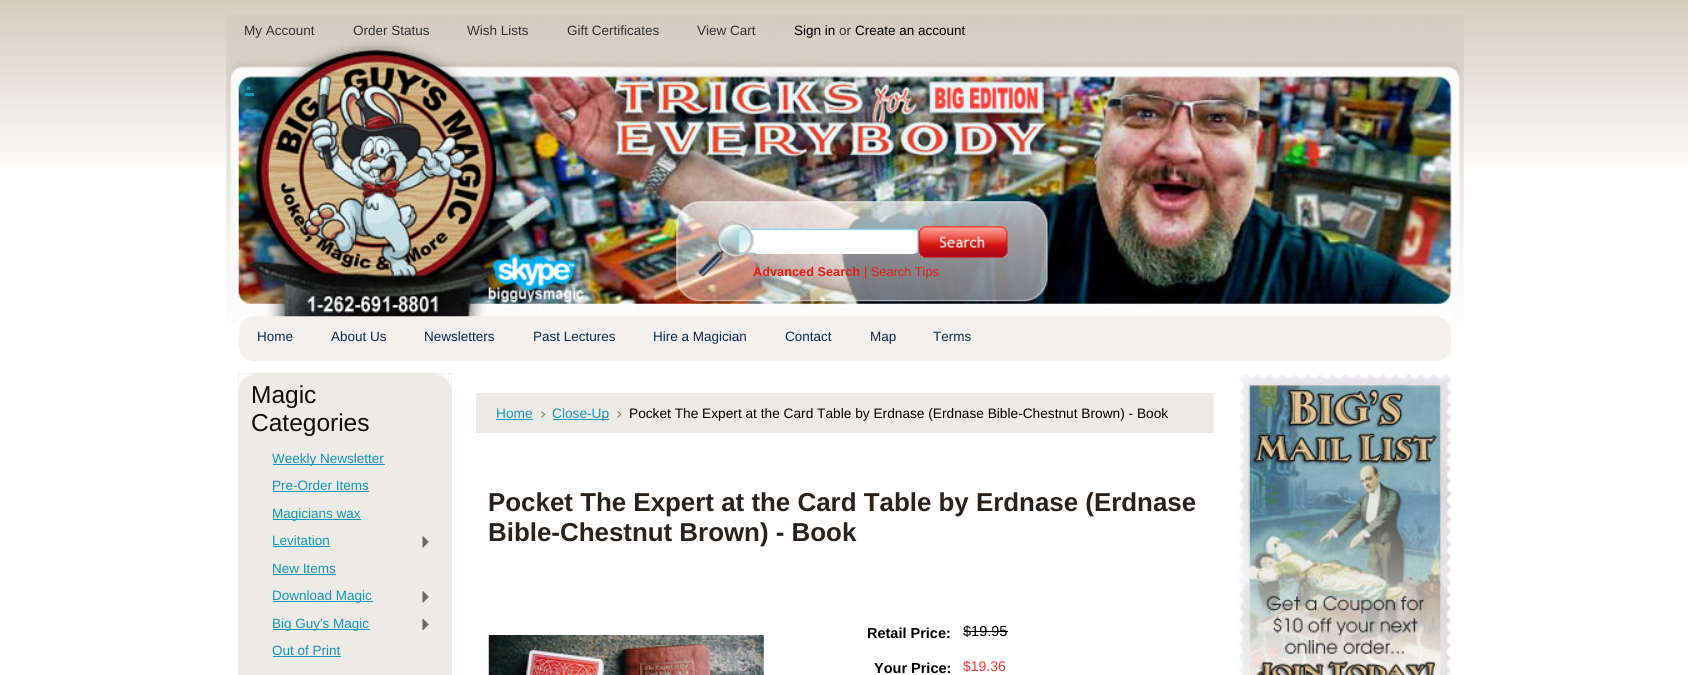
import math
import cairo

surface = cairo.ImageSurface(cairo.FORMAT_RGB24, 1688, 675)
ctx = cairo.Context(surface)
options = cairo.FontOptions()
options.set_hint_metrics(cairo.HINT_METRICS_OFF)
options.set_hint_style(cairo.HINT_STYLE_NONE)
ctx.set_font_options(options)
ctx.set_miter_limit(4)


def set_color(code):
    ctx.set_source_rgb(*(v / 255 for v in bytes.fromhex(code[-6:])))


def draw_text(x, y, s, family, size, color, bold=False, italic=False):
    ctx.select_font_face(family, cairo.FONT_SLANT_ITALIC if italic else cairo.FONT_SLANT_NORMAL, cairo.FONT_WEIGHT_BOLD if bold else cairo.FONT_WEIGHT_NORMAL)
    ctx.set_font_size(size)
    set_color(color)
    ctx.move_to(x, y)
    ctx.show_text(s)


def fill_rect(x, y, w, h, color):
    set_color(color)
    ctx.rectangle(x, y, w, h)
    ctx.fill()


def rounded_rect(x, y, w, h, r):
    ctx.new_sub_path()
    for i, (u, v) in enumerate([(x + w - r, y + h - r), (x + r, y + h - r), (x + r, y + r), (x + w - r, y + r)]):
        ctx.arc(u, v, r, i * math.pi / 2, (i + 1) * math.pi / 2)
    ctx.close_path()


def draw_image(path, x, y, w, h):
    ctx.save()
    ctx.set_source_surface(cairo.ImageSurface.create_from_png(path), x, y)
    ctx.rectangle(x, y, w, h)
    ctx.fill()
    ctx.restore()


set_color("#ffffff")
ctx.paint()
draw_image("assets/img1.png", 0, 0, 1688, 167)
draw_image("assets/img2.png", 226, 14, 1238, 309)
draw_text(244, 35, "My Account", "Liberation Sans", 13.5, "#333333")
draw_text(353, 35, "Order Status", "Liberation Sans", 13.5, "#333333")
draw_text(467, 35, "Wish Lists", "Liberation Sans", 13.5, "#333333")
draw_text(567, 35, "Gift Certificates", "Liberation Sans", 13.5, "#333333")
draw_text(697, 35, "View Cart", "Liberation Sans", 13.5, "#333333")
draw_text(794, 35, "Sign in", "Liberation Sans", 13.5, "#000000")
draw_text(839, 35, "or", "Liberation Sans", 13.5, "#333333")
draw_text(855, 35, "Create an account", "Liberation Sans", 13.5, "#000000")
draw_text(244, 90, ".", "Liberation Sans", 32, "#0f97bc")
fill_rect(245, 93, 9, 3, "#0f97bc")
draw_image("assets/img3.png", 676, 201, 372, 101)
set_color("#ffffff")
rounded_rect(754, 234, 162, 20, 4)
ctx.fill()
draw_image("assets/img4.png", 918, 226, 90, 32)
draw_text(753, 276, "Advanced Search", "Liberation Sans", 12.75, "#eb1b11", bold=True)
draw_text(864, 276, "| Search Tips", "Liberation Sans", 12.75, "#eb1b11")
draw_image("assets/img5.png", 238, 316, 1214, 46)
draw_text(257, 341, "Home", "Liberation Sans", 13.5, "#072952")
draw_text(331, 341, "About Us", "Liberation Sans", 13.5, "#072952")
draw_text(424, 341, "Newsletters", "Liberation Sans", 13.5, "#072952")
draw_text(533, 341, "Past Lectures", "Liberation Sans", 13.5, "#072952")
draw_text(653, 341, "Hire a Magician", "Liberation Sans", 13.5, "#072952")
draw_text(785, 341, "Contact", "Liberation Sans", 13.5, "#072952")
draw_text(870, 341, "Map", "Liberation Sans", 13.5, "#072952")
draw_text(933, 341, "Terms", "Liberation Sans", 13.5, "#072952")
fill_rect(238, 373, 214, 302, "#eeeae5")
draw_image("assets/img6.png", 238, 373, 214, 15)
draw_text(251, 403, "Magic", "Liberation Sans", 24.5, "#0e0e0e")
draw_text(251, 431, "Categories", "Liberation Sans", 24.5, "#0e0e0e")
fill_rect(273, 464, 112, 1, "#0f97bc")
draw_text(272, 463, "Weekly Newsletter", "Liberation Sans", 13.5, "#0f97bc")
draw_text(272, 490, "Pre-Order Items", "Liberation Sans", 13.5, "#0f97bc")
fill_rect(273, 491, 96, 1, "#0f97bc")
fill_rect(273, 519, 88, 1, "#0f97bc")
draw_text(272, 518, "Magicians wax", "Liberation Sans", 13.5, "#0f97bc")
draw_text(272, 545, "Levitation", "Liberation Sans", 13.5, "#0f97bc")
fill_rect(273, 546, 57, 1, "#0f97bc")
draw_image("assets/img7.png", 422, 536, 7, 12)
draw_text(272, 573, "New Items", "Liberation Sans", 13.5, "#0f97bc")
fill_rect(273, 574, 63, 1, "#0f97bc")
fill_rect(273, 601, 100, 1, "#0f97bc")
draw_text(272, 600, "Download Magic", "Liberation Sans", 13.5, "#0f97bc")
draw_image("assets/img7.png", 422, 591, 7, 12)
fill_rect(273, 629, 97, 1, "#0f97bc")
draw_text(272, 628, "Big Guy's Magic", "Liberation Sans", 13.5, "#0f97bc")
draw_image("assets/img8.png", 422, 618, 7, 12)
draw_text(272, 655, "Out of Print", "Liberation Sans", 13.5, "#0f97bc")
fill_rect(273, 656, 68, 1, "#0f97bc")
fill_rect(476, 393, 738, 40, "#eeeae5")
draw_text(496, 418, "Home", "Liberation Sans", 13.7, "#0f97bc")
fill_rect(496, 419, 37, 1, "#0f97bc")
draw_image("assets/img9.png", 541, 411, 4, 7)
fill_rect(553, 419, 56, 1, "#0f97bc")
draw_text(552, 418, "Close-Up", "Liberation Sans", 13.7, "#0f97bc")
draw_image("assets/img10.png", 617, 411, 5, 7)
draw_text(629, 418, "Pocket The Expert at the Card Table by Erdnase (Erdnase Bible-Chestnut Brown) - Book", "Liberation Sans", 13.7, "#000000")
draw_text(488, 511, "Pocket The Expert at the Card Table by Erdnase (Erdnase", "Liberation Sans", 25.9, "#2a221a", bold=True)
draw_text(488, 541, "Bible-Chestnut Brown) - Book", "Liberation Sans", 25.9, "#2a221a", bold=True)
draw_image("assets/img11.png", 488, 635, 276, 40)
draw_text(867, 638, "Retail Price:", "Liberation Sans", 14.5, "#000000", bold=True)
draw_text(963, 636, "$19.95", "Liberation Sans", 14.5, "#000000")
fill_rect(964, 631, 44, 1, "#050402")
draw_text(874, 673, "Your Price:", "Liberation Sans", 14.5, "#000000", bold=True)
draw_text(963, 671, "$19.36", "Liberation Sans", 14, "#ff3333")
draw_image("assets/img12.png", 1239, 374, 213, 301)
surface.write_to_png("output.png")
